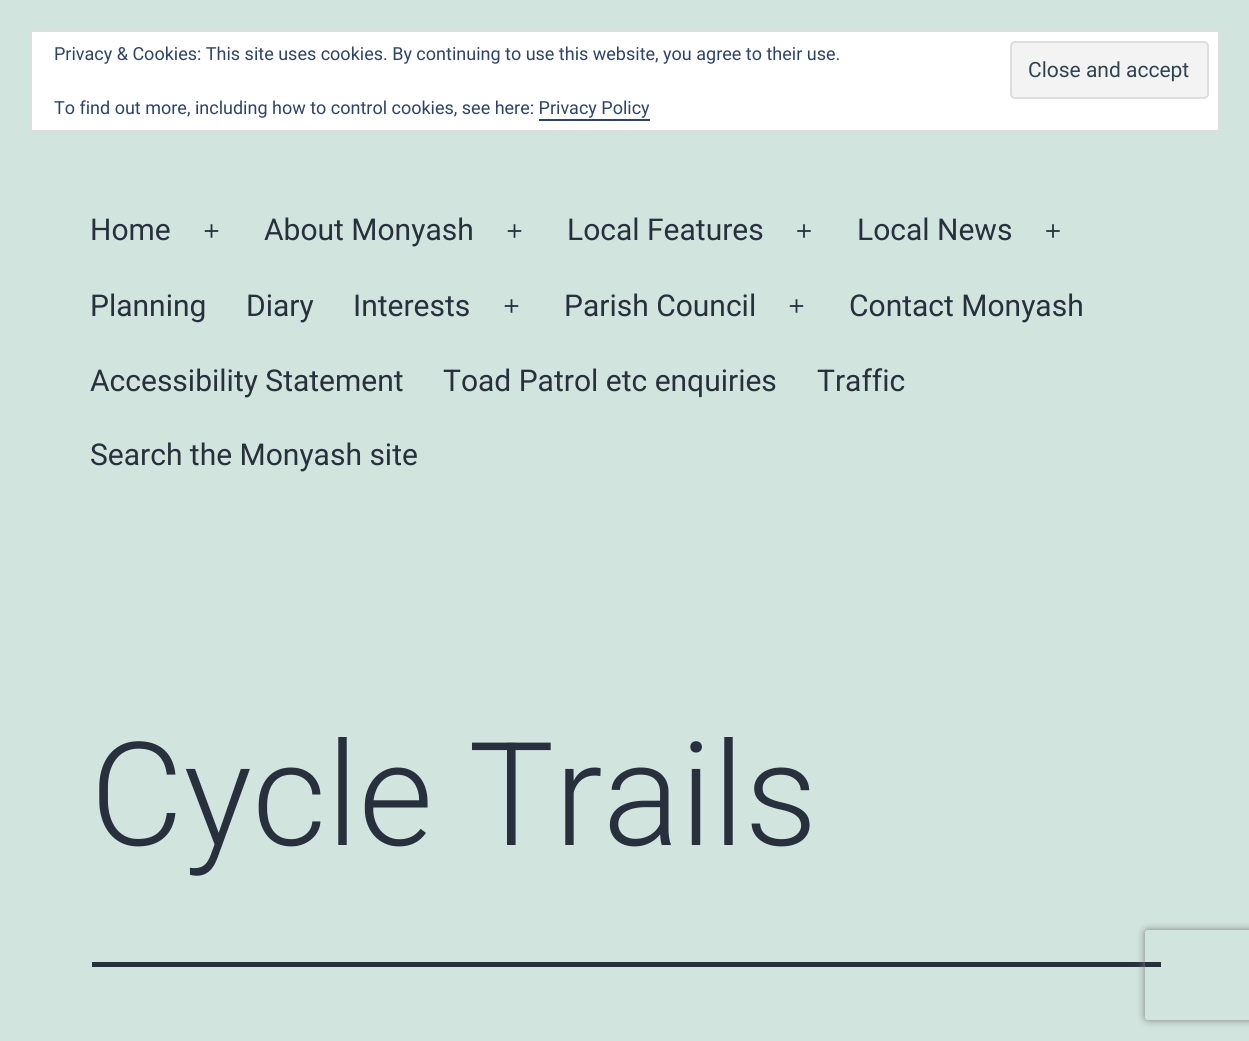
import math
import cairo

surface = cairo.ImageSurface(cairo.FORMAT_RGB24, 1249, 1041)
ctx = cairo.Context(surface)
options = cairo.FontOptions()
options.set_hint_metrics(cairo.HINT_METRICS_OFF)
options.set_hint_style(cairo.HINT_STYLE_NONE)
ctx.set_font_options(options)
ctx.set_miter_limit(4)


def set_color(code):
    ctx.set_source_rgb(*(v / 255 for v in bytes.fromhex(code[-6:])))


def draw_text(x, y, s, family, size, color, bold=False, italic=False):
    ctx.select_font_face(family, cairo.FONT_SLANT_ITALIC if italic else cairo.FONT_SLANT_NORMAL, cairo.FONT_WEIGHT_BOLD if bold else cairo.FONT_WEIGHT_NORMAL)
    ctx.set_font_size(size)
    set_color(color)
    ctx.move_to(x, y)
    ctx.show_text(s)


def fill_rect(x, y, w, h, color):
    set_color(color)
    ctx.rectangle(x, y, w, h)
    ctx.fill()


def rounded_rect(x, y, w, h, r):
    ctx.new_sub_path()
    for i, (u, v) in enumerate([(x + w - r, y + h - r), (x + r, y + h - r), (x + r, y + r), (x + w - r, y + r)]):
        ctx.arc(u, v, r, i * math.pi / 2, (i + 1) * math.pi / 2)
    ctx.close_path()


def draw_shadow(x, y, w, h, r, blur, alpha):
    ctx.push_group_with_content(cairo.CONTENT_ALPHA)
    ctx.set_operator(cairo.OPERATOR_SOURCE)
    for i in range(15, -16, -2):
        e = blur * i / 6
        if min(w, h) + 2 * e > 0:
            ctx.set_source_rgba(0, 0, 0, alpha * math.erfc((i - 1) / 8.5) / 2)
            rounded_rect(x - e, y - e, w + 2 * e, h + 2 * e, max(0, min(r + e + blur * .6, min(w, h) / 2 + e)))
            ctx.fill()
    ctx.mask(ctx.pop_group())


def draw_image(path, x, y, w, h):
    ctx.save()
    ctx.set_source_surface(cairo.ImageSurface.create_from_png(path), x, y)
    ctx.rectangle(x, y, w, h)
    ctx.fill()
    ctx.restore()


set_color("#d1e4dd")
ctx.paint()
set_color("#ffffff")
ctx.rectangle(31, 31, 1188, 100)
ctx.fill_preserve()
set_color("#dedede")
ctx.stroke()
draw_text(54, 60, "Privacy & Cookies: This site uses cookies. By continuing to use this website, you agree to their use.", "Roboto", 18, "#2e4467")
set_color("#f3f3f3")
rounded_rect(1011, 42, 197, 56, 4)
ctx.fill_preserve()
set_color("#dedede")
ctx.stroke()
draw_text(1028, 77, "Close and accept", "Roboto", 21, "#2e4453")
draw_text(54, 114, "To find out more, including how to control cookies, see here: Privacy Policy", "Roboto", 18, "#2e4467")
fill_rect(539, 119, 111, 2, "#2e4467")
draw_text(90, 240, "Home", "Roboto", 30, "#28303d")
draw_image("assets/img1.png", 204, 224, 15, 14)
draw_text(264, 240, "About Monyash", "Roboto", 30, "#28303d")
draw_image("assets/img1.png", 507, 224, 15, 14)
draw_text(567, 240, "Local Features", "Roboto", 30, "#28303d")
draw_image("assets/img2.png", 797, 224, 14, 14)
draw_text(857, 240, "Local News", "Roboto", 30, "#28303d")
draw_image("assets/img2.png", 1046, 224, 14, 14)
draw_text(90, 316, "Planning", "Roboto", 30, "#28303d")
draw_text(246, 316, "Diary", "Roboto", 30, "#28303d")
draw_text(353, 316, "Interests", "Roboto", 30, "#28303d")
draw_image("assets/img1.png", 504, 299, 15, 14)
draw_text(564, 316, "Parish Council", "Roboto", 30, "#28303d")
draw_image("assets/img1.png", 789, 299, 15, 14)
draw_text(849, 316, "Contact Monyash", "Roboto", 30, "#28303d")
draw_text(90, 391, "Accessibility Statement", "Roboto", 30, "#28303d")
draw_text(443, 391, "Toad Patrol etc enquiries", "Roboto", 30, "#28303d")
draw_text(817, 391, "Traffic", "Roboto", 30, "#28303d")
draw_text(90, 465, "Search the Monyash site", "Roboto", 30, "#28303d")
draw_text(90, 845, "Cycle Trails", "Roboto Light", 144, "#28303d")
fill_rect(92, 962, 1069, 5, "#28303d")
ctx.save()
ctx.set_fill_rule(cairo.FILL_RULE_EVEN_ODD)
ctx.new_path()
ctx.move_to(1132, 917)
ctx.line_to(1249, 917)
ctx.line_to(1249, 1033)
ctx.line_to(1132, 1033)
ctx.close_path()
ctx.move_to(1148, 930)
ctx.line_to(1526, 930)
ctx.curve_to(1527.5, 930, 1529, 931.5, 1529, 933)
ctx.line_to(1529, 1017)
ctx.curve_to(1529, 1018.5, 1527.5, 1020, 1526, 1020)
ctx.line_to(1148, 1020)
ctx.curve_to(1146.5, 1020, 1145, 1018.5, 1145, 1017)
ctx.line_to(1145, 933)
ctx.curve_to(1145, 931.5, 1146.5, 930, 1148, 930)
ctx.close_path()
ctx.clip()
set_color("#808080")
draw_shadow(1145, 930, 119, 90, 3, 4, 1)
ctx.restore()
surface.write_to_png("output.png")
